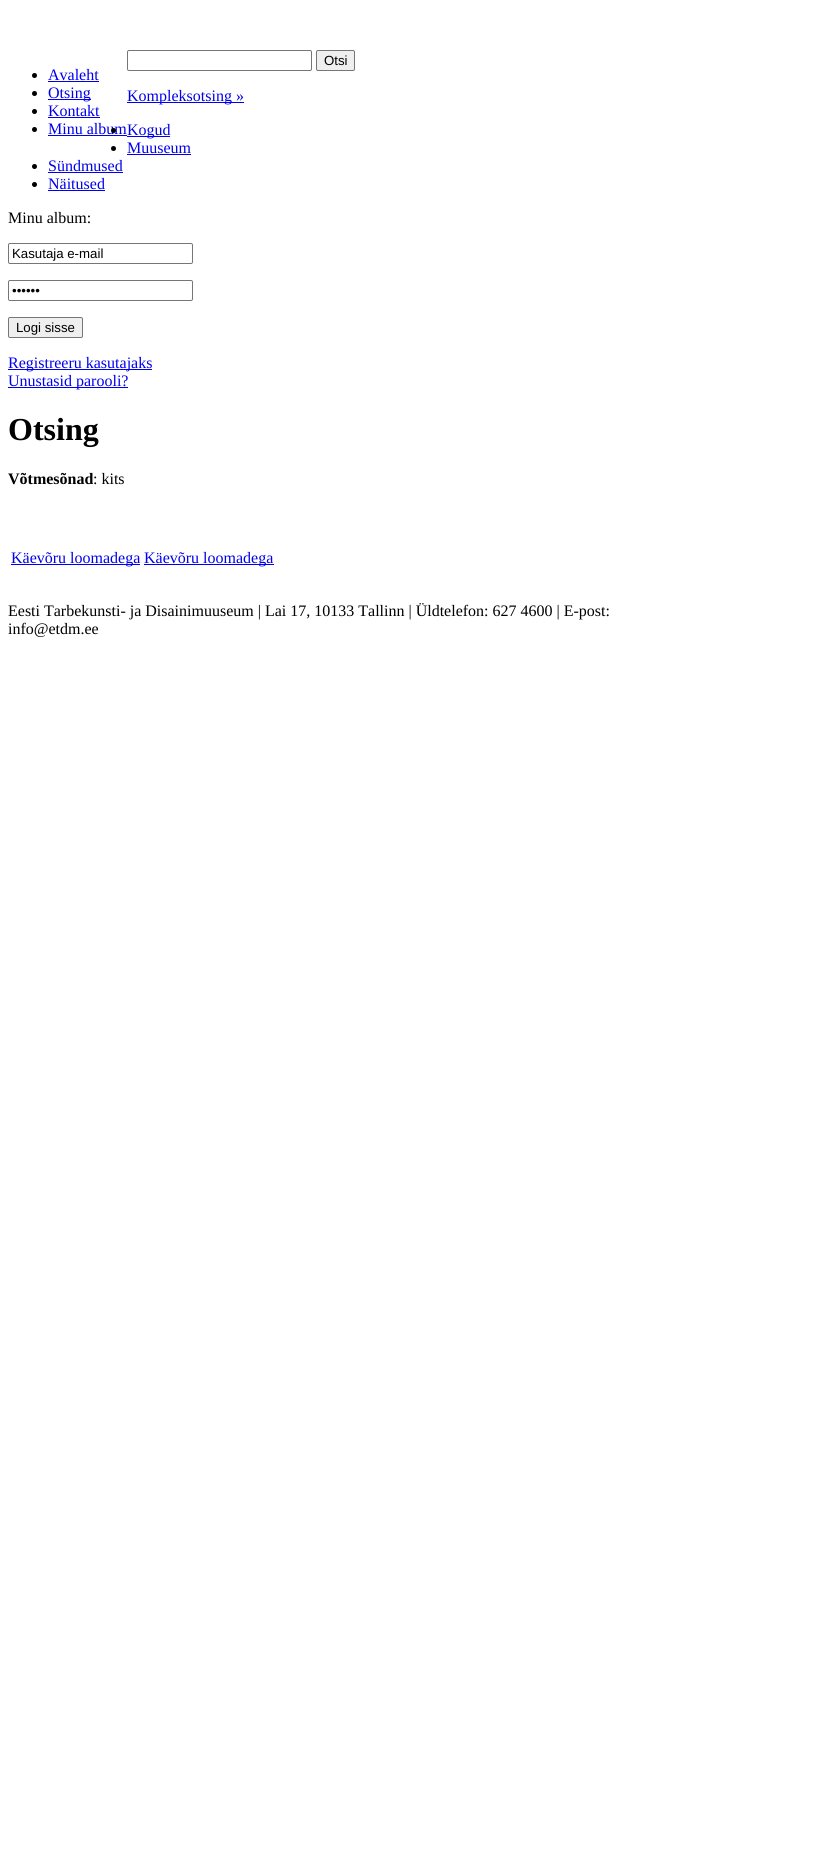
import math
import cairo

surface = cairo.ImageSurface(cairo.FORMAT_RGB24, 823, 1858)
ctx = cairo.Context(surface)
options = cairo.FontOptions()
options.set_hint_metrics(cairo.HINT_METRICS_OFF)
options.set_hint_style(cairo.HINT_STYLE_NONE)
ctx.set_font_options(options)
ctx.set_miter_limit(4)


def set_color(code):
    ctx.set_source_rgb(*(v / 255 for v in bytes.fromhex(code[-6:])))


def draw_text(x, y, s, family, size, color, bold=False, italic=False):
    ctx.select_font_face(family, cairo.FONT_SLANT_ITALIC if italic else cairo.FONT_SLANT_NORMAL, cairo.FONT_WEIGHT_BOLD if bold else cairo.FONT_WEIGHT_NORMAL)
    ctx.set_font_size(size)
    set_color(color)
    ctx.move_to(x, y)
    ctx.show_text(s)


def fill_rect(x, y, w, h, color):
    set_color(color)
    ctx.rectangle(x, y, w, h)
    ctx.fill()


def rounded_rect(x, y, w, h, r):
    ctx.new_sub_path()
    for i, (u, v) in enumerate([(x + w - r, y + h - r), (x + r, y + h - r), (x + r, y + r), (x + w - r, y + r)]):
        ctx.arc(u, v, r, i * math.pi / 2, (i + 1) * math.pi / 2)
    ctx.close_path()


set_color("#ffffff")
ctx.paint()
set_color("#000000")
ctx.arc(34.5, 75.5, 2.5, 0, 2 * math.pi)
ctx.fill()
draw_text(48, 80, "Avaleht", "Liberation Serif", 16, "#0000ee")
fill_rect(48, 81, 51, 1, "#0000ee")
set_color("#000000")
ctx.new_path()
ctx.arc(34.5, 93.5, 2.5, 0, 2 * math.pi)
ctx.fill()
fill_rect(48, 99, 43, 1, "#0000ee")
draw_text(48, 98, "Otsing", "Liberation Serif", 16, "#0000ee")
set_color("#000000")
ctx.new_path()
ctx.arc(34.5, 111.5, 2.5, 0, 2 * math.pi)
ctx.fill()
draw_text(48, 116, "Kontakt", "Liberation Serif", 16, "#0000ee")
fill_rect(48, 117, 52, 1, "#0000ee")
set_color("#000000")
ctx.new_path()
ctx.arc(34.5, 129.5, 2.5, 0, 2 * math.pi)
ctx.fill()
draw_text(48, 134, "Minu album", "Liberation Serif", 16, "#0000ee")
fill_rect(48, 135, 79, 1, "#0000ee")
rounded_rect(127.5, 50.5, 184, 20, 1.5)
set_color("#767676")
ctx.set_line_width(1)
ctx.stroke()
set_color("#efefef")
rounded_rect(316.5, 50.5, 38, 20, 1.5)
ctx.fill_preserve()
set_color("#767676")
ctx.stroke()
draw_text(324, 65, "Otsi", "Liberation Sans", 13.25, "#000000")
fill_rect(127, 102, 117, 1, "#0000ee")
draw_text(127, 101, "Kompleksotsing »", "Liberation Serif", 16, "#0000ee")
set_color("#000000")
ctx.new_path()
ctx.arc(113.5, 130.5, 2.5, 0, 2 * math.pi)
ctx.fill()
fill_rect(127, 136, 43, 1, "#0000ee")
draw_text(127, 135, "Kogud", "Liberation Serif", 16, "#0000ee")
set_color("#000000")
ctx.new_path()
ctx.arc(113.5, 148.5, 2.5, 0, 2 * math.pi)
ctx.fill()
draw_text(127, 153, "Muuseum", "Liberation Serif", 16, "#0000ee")
fill_rect(127, 154, 64, 1, "#0000ee")
set_color("#000000")
ctx.new_path()
ctx.arc(34.5, 166.5, 2.5, 0, 2 * math.pi)
ctx.fill()
draw_text(48, 171, "Sündmused", "Liberation Serif", 16, "#0000ee")
fill_rect(48, 172, 75, 1, "#0000ee")
set_color("#000000")
ctx.new_path()
ctx.arc(34.5, 184.5, 2.5, 0, 2 * math.pi)
ctx.fill()
draw_text(48, 189, "Näitused", "Liberation Serif", 16, "#0000ee")
fill_rect(48, 190, 57, 1, "#0000ee")
draw_text(8, 223, "Minu album:", "Liberation Serif", 16, "#000000")
rounded_rect(8.5, 243.5, 184, 20, 1.5)
set_color("#767676")
ctx.stroke()
draw_text(12, 258, "Kasutaja e-mail", "Liberation Sans", 13.25, "#000000")
rounded_rect(8.5, 280.5, 184, 20, 1.5)
set_color("#767676")
ctx.stroke()
draw_text(12, 295, "••••••", "Liberation Sans", 13.25, "#000000")
set_color("#efefef")
rounded_rect(8.5, 317.5, 74, 20, 1.5)
ctx.fill_preserve()
set_color("#767676")
ctx.stroke()
draw_text(16, 332, "Logi sisse", "Liberation Sans", 13.25, "#000000")
fill_rect(8, 369, 144, 1, "#0000ee")
draw_text(8, 368, "Registreeru kasutajaks", "Liberation Serif", 16, "#0000ee")
fill_rect(8, 387, 120, 1, "#0000ee")
draw_text(8, 386, "Unustasid parooli?", "Liberation Serif", 16, "#0000ee")
draw_text(8, 440, "Otsing", "Liberation Serif", 32, "#000000", bold=True)
draw_text(8, 484, "Võtmesõnad", "Liberation Serif", 16, "#000000", bold=True)
draw_text(93, 484, ": kits", "Liberation Serif", 16, "#000000")
fill_rect(11, 564, 129, 1, "#0000ee")
draw_text(11, 563, "Käevõru loomadega", "Liberation Serif", 16, "#0000ee")
fill_rect(144, 564, 130, 1, "#0000ee")
draw_text(144, 563, "Käevõru loomadega", "Liberation Serif", 16, "#0000ee")
draw_text(8, 616, "Eesti Tarbekunsti- ja Disainimuuseum | Lai 17, 10133 Tallinn | Üldtelefon: 627 4600 | E-post:", "Liberation Serif", 16, "#000000")
draw_text(8, 634, "info@etdm.ee", "Liberation Serif", 16, "#000000")
surface.write_to_png("output.png")
